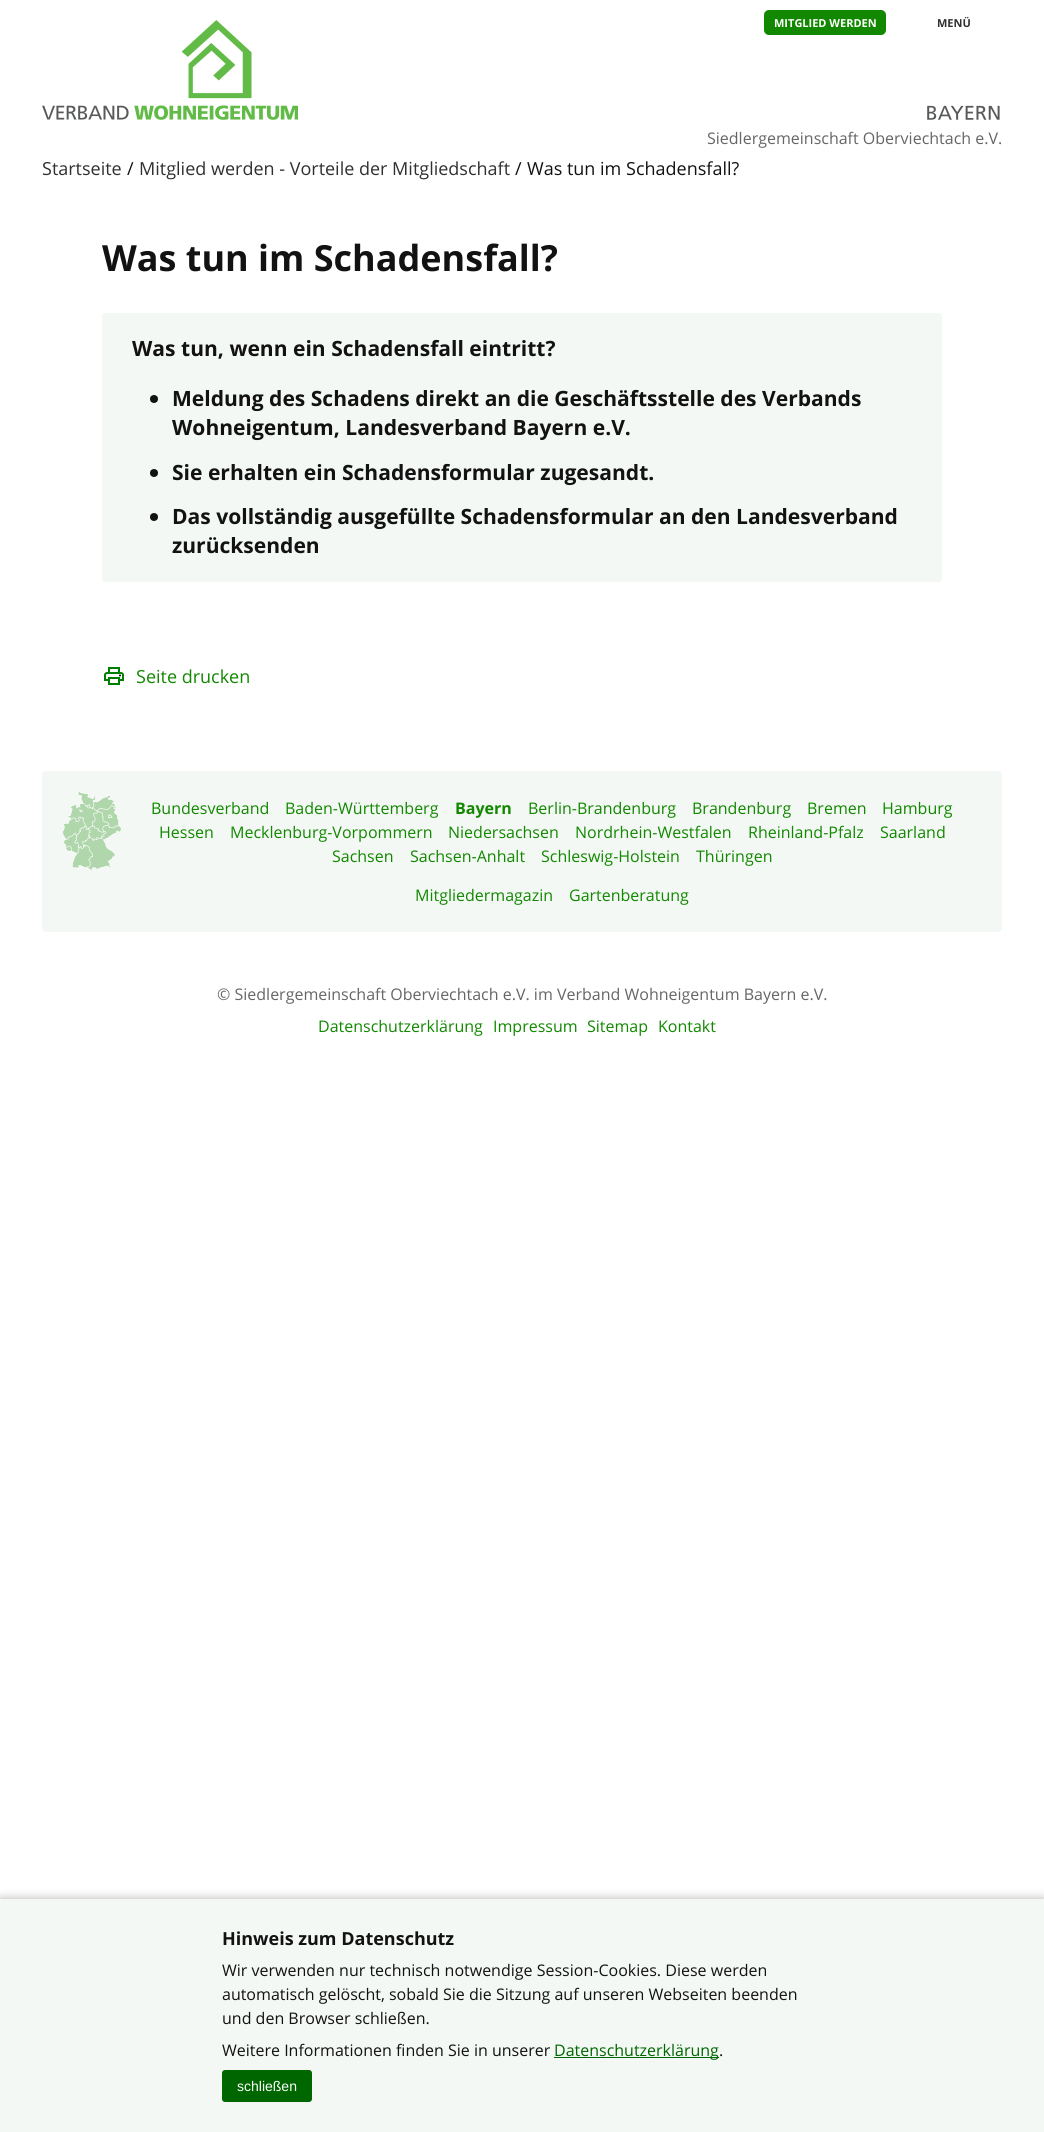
import math
import cairo

surface = cairo.ImageSurface(cairo.FORMAT_RGB24, 1044, 2132)
ctx = cairo.Context(surface)
options = cairo.FontOptions()
options.set_hint_metrics(cairo.HINT_METRICS_OFF)
options.set_hint_style(cairo.HINT_STYLE_NONE)
ctx.set_font_options(options)
ctx.set_miter_limit(4)


def set_color(code):
    ctx.set_source_rgb(*(v / 255 for v in bytes.fromhex(code[-6:])))


def draw_text(x, y, s, family, size, color, bold=False, italic=False):
    ctx.select_font_face(family, cairo.FONT_SLANT_ITALIC if italic else cairo.FONT_SLANT_NORMAL, cairo.FONT_WEIGHT_BOLD if bold else cairo.FONT_WEIGHT_NORMAL)
    ctx.set_font_size(size)
    set_color(color)
    ctx.move_to(x, y)
    ctx.show_text(s)


def fill_rect(x, y, w, h, color):
    set_color(color)
    ctx.rectangle(x, y, w, h)
    ctx.fill()


def rounded_rect(x, y, w, h, r):
    ctx.new_sub_path()
    for i, (u, v) in enumerate([(x + w - r, y + h - r), (x + r, y + h - r), (x + r, y + r), (x + w - r, y + r)]):
        ctx.arc(u, v, r, i * math.pi / 2, (i + 1) * math.pi / 2)
    ctx.close_path()


def draw_shadow(x, y, w, h, r, blur, alpha):
    ctx.push_group_with_content(cairo.CONTENT_ALPHA)
    ctx.set_operator(cairo.OPERATOR_SOURCE)
    for i in range(15, -16, -2):
        e = blur * i / 6
        if min(w, h) + 2 * e > 0:
            ctx.set_source_rgba(0, 0, 0, alpha * math.erfc((i - 1) / 8.5) / 2)
            rounded_rect(x - e, y - e, w + 2 * e, h + 2 * e, max(0, min(r + e + blur * .6, min(w, h) / 2 + e)))
            ctx.fill()
    ctx.mask(ctx.pop_group())


def draw_image(path, x, y, w, h):
    ctx.save()
    ctx.set_source_surface(cairo.ImageSurface.create_from_png(path), x, y)
    ctx.rectangle(x, y, w, h)
    ctx.fill()
    ctx.restore()


set_color("#ffffff")
ctx.paint()
draw_image("assets/img1.png", 42, 20, 256, 100)
set_color("#118800")
rounded_rect(764, 10, 122, 25, 5)
ctx.fill()
draw_text(774, 27, "MITGLIED WERDEN", "Open Sans", 11, "#ffffff", bold=True)
draw_text(937, 27, "MENÜ", "Open Sans", 11, "#303030", bold=True)
draw_image("assets/img2.png", 927, 105, 73, 15)
draw_text(707, 144, "Siedlergemeinschaft Oberviechtach e.V.", "Open Sans", 16, "#666666")
draw_text(42, 175, "Startseite", "Open Sans", 18, "#303030")
draw_text(127, 175, "/", "Open Sans", 18, "#121212")
draw_text(139, 175, "Mitglied werden - Vorteile der Mitgliedschaft", "Open Sans", 18, "#303030")
draw_text(515, 175, "/", "Open Sans", 18, "#121212")
draw_text(527, 175, "Was tun im Schadensfall?", "Open Sans", 18, "#121212")
draw_text(102, 271, "Was tun im Schadensfall?", "Open Sans", 36, "#121212", bold=True)
set_color("#f4f8f4")
rounded_rect(102, 313, 840, 269, 3)
ctx.fill()
draw_text(132, 356, "Was tun, wenn ein Schadensfall eintritt?", "Open Sans", 21.05, "#121212", bold=True)
ctx.new_path()
ctx.arc(154, 399, 4, 0, 2 * math.pi)
ctx.fill()
draw_text(172, 406, "Meldung des Schadens direkt an die Geschäftsstelle des Verbands", "Open Sans", 21.05, "#121212", bold=True)
draw_text(172, 435, "Wohneigentum, Landesverband Bayern e.V.", "Open Sans", 21.05, "#121212", bold=True)
ctx.new_path()
ctx.arc(154, 473, 4, 0, 2 * math.pi)
ctx.fill()
draw_text(172, 480, "Sie erhalten ein Schadensformular zugesandt.", "Open Sans", 21.05, "#121212", bold=True)
ctx.new_path()
ctx.arc(154, 517, 4, 0, 2 * math.pi)
ctx.fill()
draw_text(172, 524, "Das vollständig ausgefüllte Schadensformular an den Landesverband", "Open Sans", 21.05, "#121212", bold=True)
draw_text(172, 553, "zurücksenden", "Open Sans", 21.05, "#121212", bold=True)
draw_image("assets/img3.png", 104, 667, 20, 18)
draw_text(136, 683, "Seite drucken", "Open Sans", 18, "#118800")
set_color("#f4f8f4")
rounded_rect(42, 771, 960, 161, 4)
ctx.fill()
draw_image("assets/img4.png", 63, 792, 58, 78)
draw_text(151, 814, "Bundesverband", "Open Sans", 16, "#118800")
draw_text(285, 814, "Baden-Württemberg", "Open Sans", 16, "#118800")
draw_text(455, 814, "Bayern", "Open Sans", 16, "#118800", bold=True)
draw_text(528, 814, "Berlin-Brandenburg", "Open Sans", 16, "#118800")
draw_text(692, 814, "Brandenburg", "Open Sans", 16, "#118800")
draw_text(807, 814, "Bremen", "Open Sans", 16, "#118800")
draw_text(882, 814, "Hamburg", "Open Sans", 16, "#118800")
draw_text(159, 838, "Hessen", "Open Sans", 16, "#118800")
draw_text(230, 838, "Mecklenburg-Vorpommern", "Open Sans", 16, "#118800")
draw_text(448, 838, "Niedersachsen", "Open Sans", 16, "#118800")
draw_text(575, 838, "Nordrhein-Westfalen", "Open Sans", 16, "#118800")
draw_text(748, 838, "Rheinland-Pfalz", "Open Sans", 16, "#118800")
draw_text(880, 838, "Saarland", "Open Sans", 16, "#118800")
draw_text(332, 862, "Sachsen", "Open Sans", 16, "#118800")
draw_text(410, 862, "Sachsen-Anhalt", "Open Sans", 16, "#118800")
draw_text(541, 862, "Schleswig-Holstein", "Open Sans", 16, "#118800")
draw_text(696, 862, "Thüringen", "Open Sans", 16, "#118800")
draw_text(415, 901, "Mitgliedermagazin", "Open Sans", 16, "#118800")
draw_text(569, 901, "Gartenberatung", "Open Sans", 16, "#118800")
draw_text(217, 1000, "© Siedlergemeinschaft Oberviechtach e.V. im Verband Wohneigentum Bayern e.V.", "Open Sans", 16, "#666666")
draw_text(318, 1032, "Datenschutzerklärung", "Open Sans", 16, "#118800")
draw_text(493, 1032, "Impressum", "Open Sans", 16, "#118800")
draw_text(587, 1032, "Sitemap", "Open Sans", 16, "#118800")
draw_text(658, 1032, "Kontakt", "Open Sans", 16, "#118800")
set_color("#000000")
draw_shadow(0, 1899, 1044, 233, 0, 5, 0.3)
fill_rect(0, 1899, 1044, 233, "#f4f8f4")
draw_text(222, 1945, "Hinweis zum Datenschutz", "Open Sans", 18, "#121212", bold=True)
draw_text(222, 1976, "Wir verwenden nur technisch notwendige Session-Cookies. Diese werden", "Open Sans", 16, "#121212")
draw_text(222, 2000, "automatisch gelöscht, sobald Sie die Sitzung auf unseren Webseiten beenden", "Open Sans", 16, "#121212")
draw_text(222, 2024, "und den Browser schließen.", "Open Sans", 16, "#121212")
draw_text(222, 2056, "Weitere Informationen finden Sie in unserer", "Open Sans", 16, "#121212")
fill_rect(554, 2057, 165, 1, "#006600")
draw_text(554, 2056, "Datenschutzerklärung", "Open Sans", 16, "#006600")
draw_text(719, 2056, ".", "Open Sans", 16, "#121212")
set_color("#006600")
rounded_rect(222, 2070, 90, 32, 3)
ctx.fill()
draw_text(237, 2091, "schließen", "Liberation Sans", 14, "#ffffff")
surface.write_to_png("output.png")
